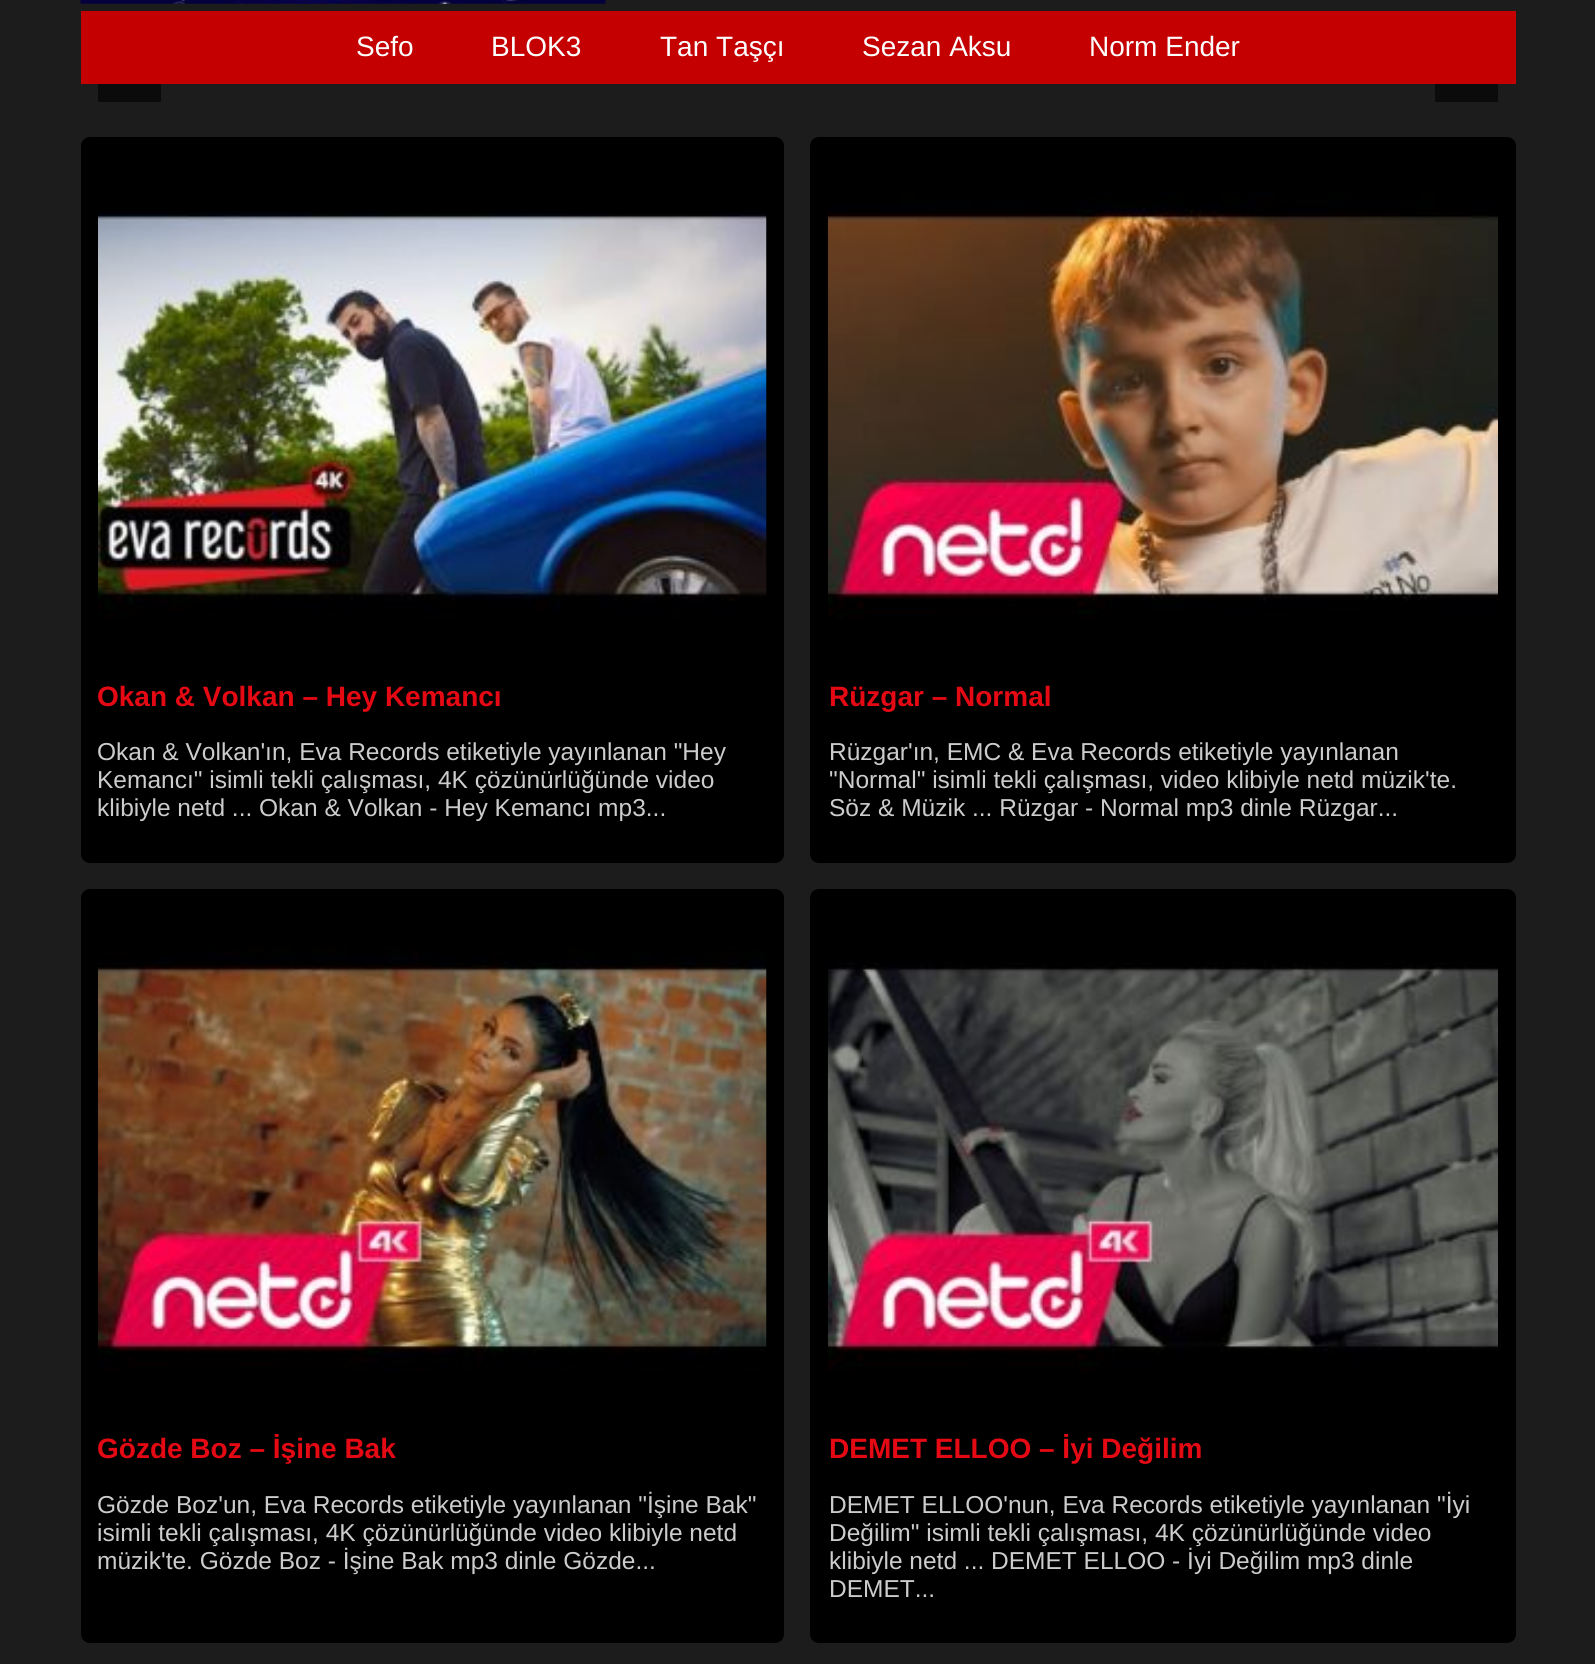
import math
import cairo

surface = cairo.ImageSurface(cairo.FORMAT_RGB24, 1595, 1664)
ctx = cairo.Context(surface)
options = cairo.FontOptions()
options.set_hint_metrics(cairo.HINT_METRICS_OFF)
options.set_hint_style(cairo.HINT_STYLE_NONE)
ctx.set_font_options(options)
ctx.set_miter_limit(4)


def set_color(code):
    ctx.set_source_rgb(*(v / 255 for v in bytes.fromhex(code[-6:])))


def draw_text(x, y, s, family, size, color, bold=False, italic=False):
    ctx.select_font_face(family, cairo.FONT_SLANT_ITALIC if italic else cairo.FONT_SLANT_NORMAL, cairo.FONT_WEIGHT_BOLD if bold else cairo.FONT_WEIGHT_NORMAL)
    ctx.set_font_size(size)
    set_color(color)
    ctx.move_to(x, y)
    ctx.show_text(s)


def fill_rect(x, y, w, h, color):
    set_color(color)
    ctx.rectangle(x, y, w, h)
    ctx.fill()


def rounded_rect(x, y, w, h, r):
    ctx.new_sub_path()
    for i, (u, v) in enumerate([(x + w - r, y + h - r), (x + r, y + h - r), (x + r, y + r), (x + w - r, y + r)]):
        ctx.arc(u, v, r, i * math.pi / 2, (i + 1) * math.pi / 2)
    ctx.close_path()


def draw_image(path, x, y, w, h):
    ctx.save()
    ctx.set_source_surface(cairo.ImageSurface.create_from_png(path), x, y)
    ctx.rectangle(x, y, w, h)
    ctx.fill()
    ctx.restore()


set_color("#1c1c1c")
ctx.paint()
draw_image("assets/img1.png", 80, 0, 526, 4)
fill_rect(81, 11, 1435, 73, "#c40000")
draw_text(356, 56, "Sefo", "Liberation Sans", 28, "#ffffff")
draw_text(491, 56, "BLOK3", "Liberation Sans", 28, "#ffffff")
draw_text(660, 56, "Tan Taşçı", "Liberation Sans", 28, "#ffffff")
draw_text(862, 56, "Sezan Aksu", "Liberation Sans", 28, "#ffffff")
draw_text(1089, 56, "Norm Ender", "Liberation Sans", 28, "#ffffff")
fill_rect(98, 84, 63, 18, "#0b0b0b")
fill_rect(1435, 84, 63, 18, "#0b0b0b")
set_color("#000000")
rounded_rect(81, 137, 703, 726, 9)
ctx.fill()
draw_image("assets/img2.png", 98, 211, 669, 408)
draw_text(97, 706, "Okan & Volkan – Hey Kemancı", "Liberation Sans", 28, "#e50914", bold=True)
draw_text(97, 760, "Okan & Volkan'ın, Eva Records etiketiyle yayınlanan \"Hey", "Liberation Sans", 24.5, "#cccccc")
draw_text(97, 788, "Kemancı\" isimli tekli çalışması, 4K çözünürlüğünde video", "Liberation Sans", 24.5, "#cccccc")
draw_text(97, 816, "klibiyle netd ... Okan & Volkan - Hey Kemancı mp3...", "Liberation Sans", 24.5, "#cccccc")
set_color("#000000")
rounded_rect(810, 137, 706, 726, 9)
ctx.fill()
draw_image("assets/img3.png", 827, 191, 671, 428)
draw_text(829, 706, "Rüzgar – Normal", "Liberation Sans", 28, "#e50914", bold=True)
draw_text(829, 760, "Rüzgar'ın, EMC & Eva Records etiketiyle yayınlanan", "Liberation Sans", 24.5, "#cccccc")
draw_text(829, 788, "\"Normal\" isimli tekli çalışması, video klibiyle netd müzik'te.", "Liberation Sans", 24.5, "#cccccc")
draw_text(829, 816, "Söz & Müzik ... Rüzgar - Normal mp3 dinle Rüzgar...", "Liberation Sans", 24.5, "#cccccc")
set_color("#000000")
rounded_rect(81, 889, 703, 754, 9)
ctx.fill()
draw_image("assets/img4.png", 98, 946, 669, 425)
draw_text(97, 1458, "Gözde Boz – İşine Bak", "Liberation Sans", 28, "#e50914", bold=True)
draw_text(97, 1513, "Gözde Boz'un, Eva Records etiketiyle yayınlanan \"İşine Bak\"", "Liberation Sans", 24.5, "#cccccc")
draw_text(97, 1541, "isimli tekli çalışması, 4K çözünürlüğünde video klibiyle netd", "Liberation Sans", 24.5, "#cccccc")
draw_text(97, 1569, "müzik'te. Gözde Boz - İşine Bak mp3 dinle Gözde...", "Liberation Sans", 24.5, "#cccccc")
set_color("#000000")
rounded_rect(810, 889, 706, 754, 9)
ctx.fill()
draw_image("assets/img5.png", 827, 961, 671, 411)
draw_text(829, 1458, "DEMET ELLOO – İyi Değilim", "Liberation Sans", 28, "#e50914", bold=True)
draw_text(829, 1513, "DEMET ELLOO'nun, Eva Records etiketiyle yayınlanan \"İyi", "Liberation Sans", 24.5, "#cccccc")
draw_text(829, 1541, "Değilim\" isimli tekli çalışması, 4K çözünürlüğünde video", "Liberation Sans", 24.5, "#cccccc")
draw_text(829, 1569, "klibiyle netd ... DEMET ELLOO - İyi Değilim mp3 dinle", "Liberation Sans", 24.5, "#cccccc")
draw_text(829, 1597, "DEMET...", "Liberation Sans", 24.5, "#cccccc")
surface.write_to_png("output.png")
